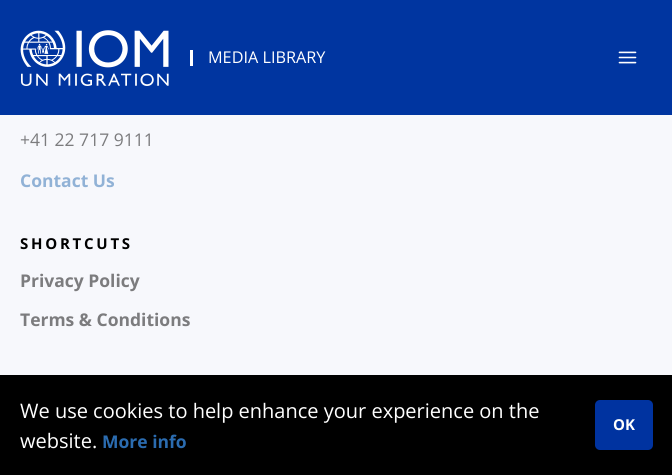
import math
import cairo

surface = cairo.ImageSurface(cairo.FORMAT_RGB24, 672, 475)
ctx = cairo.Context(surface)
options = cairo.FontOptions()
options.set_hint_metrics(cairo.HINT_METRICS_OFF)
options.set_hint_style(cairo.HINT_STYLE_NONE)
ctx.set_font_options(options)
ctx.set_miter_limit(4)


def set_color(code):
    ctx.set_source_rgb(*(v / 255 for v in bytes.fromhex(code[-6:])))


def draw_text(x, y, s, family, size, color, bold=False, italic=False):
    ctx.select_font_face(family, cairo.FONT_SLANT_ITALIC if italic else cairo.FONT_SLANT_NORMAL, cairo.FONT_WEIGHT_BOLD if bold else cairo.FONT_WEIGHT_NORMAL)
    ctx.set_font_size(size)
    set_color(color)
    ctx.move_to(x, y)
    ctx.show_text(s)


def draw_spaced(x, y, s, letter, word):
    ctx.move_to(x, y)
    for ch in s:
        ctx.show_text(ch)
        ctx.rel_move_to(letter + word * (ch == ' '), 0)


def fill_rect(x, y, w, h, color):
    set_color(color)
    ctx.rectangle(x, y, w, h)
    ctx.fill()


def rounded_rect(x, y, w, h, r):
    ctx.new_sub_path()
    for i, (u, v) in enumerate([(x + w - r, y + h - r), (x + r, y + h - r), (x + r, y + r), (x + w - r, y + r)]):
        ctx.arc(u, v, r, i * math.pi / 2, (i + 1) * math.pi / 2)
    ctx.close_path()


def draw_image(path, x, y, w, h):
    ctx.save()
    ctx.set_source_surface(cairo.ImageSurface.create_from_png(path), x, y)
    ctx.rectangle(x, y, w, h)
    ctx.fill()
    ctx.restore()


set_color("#f7f8fc")
ctx.paint()
fill_rect(0, 0, 672, 115, "#0035a0")
draw_image("assets/img1.png", 20, 30, 149, 56)
fill_rect(190, 50, 3, 16, "#ffffff")
draw_text(208, 63, "MEDIA LIBRARY", "Open Sans", 16.25, "#ffffff")
draw_image("assets/img2.png", 618, 51, 19, 13)
draw_text(20, 146, "+41 22 717 9111", "Open Sans", 17.5, "#7c7c7e")
draw_text(20, 187, "Contact Us", "Open Sans", 17.5, "#91b2d6", bold=True)
ctx.set_font_size(15)
set_color("#000000")
draw_spaced(20, 249, "SHORTCUTS", 2.75, 0)
draw_text(20, 287, "Privacy Policy", "Open Sans", 17.5, "#7c7c7e", bold=True)
draw_text(20, 326, "Terms & Conditions", "Open Sans", 17.5, "#7c7c7e", bold=True)
fill_rect(0, 375, 672, 100, "#000000")
draw_text(20, 418, "We use cookies to help enhance your experience on the", "Open Sans", 20, "#ffffff")
draw_text(20, 448, "website.", "Open Sans", 20, "#ffffff")
draw_text(102, 448, "More info", "Open Sans", 17.5, "#2b6cb0", bold=True)
set_color("#0033a0")
rounded_rect(595, 400, 58, 50, 5)
ctx.fill()
draw_text(613, 430, "OK", "Open Sans", 15, "#ffffff", bold=True)
surface.write_to_png("output.png")
